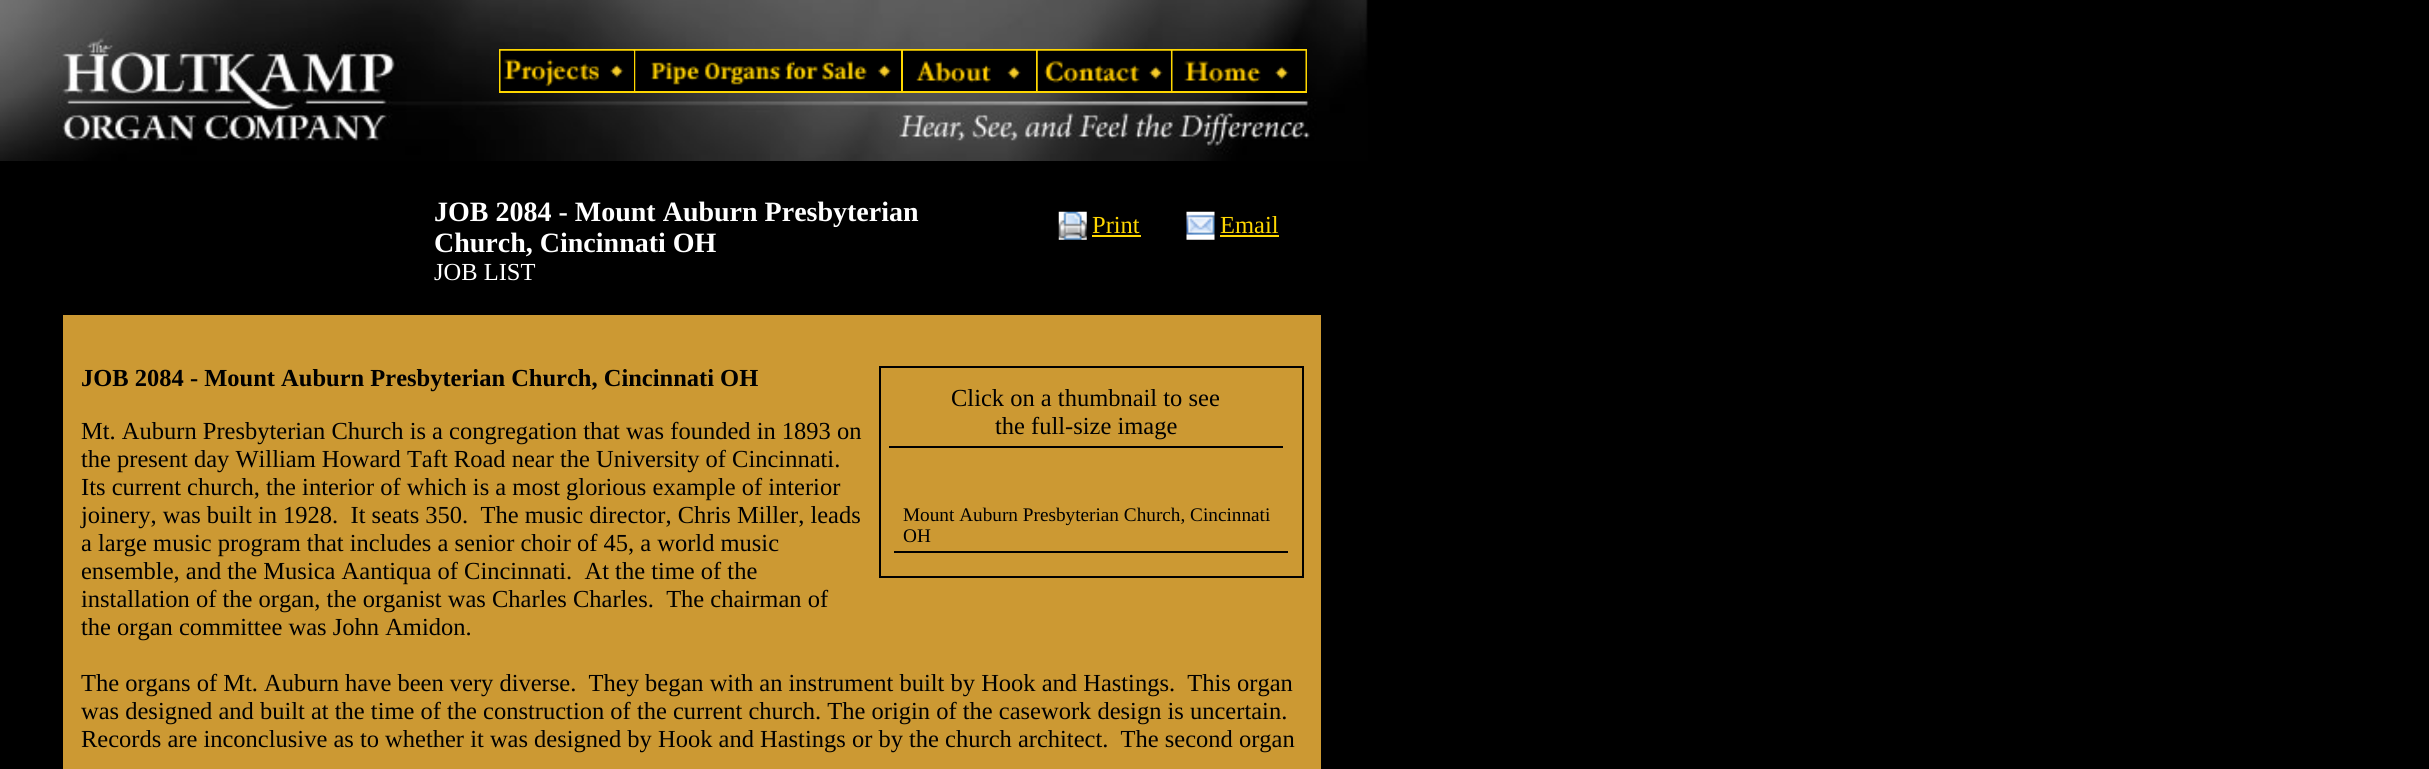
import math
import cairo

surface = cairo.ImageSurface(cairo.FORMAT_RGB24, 2429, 769)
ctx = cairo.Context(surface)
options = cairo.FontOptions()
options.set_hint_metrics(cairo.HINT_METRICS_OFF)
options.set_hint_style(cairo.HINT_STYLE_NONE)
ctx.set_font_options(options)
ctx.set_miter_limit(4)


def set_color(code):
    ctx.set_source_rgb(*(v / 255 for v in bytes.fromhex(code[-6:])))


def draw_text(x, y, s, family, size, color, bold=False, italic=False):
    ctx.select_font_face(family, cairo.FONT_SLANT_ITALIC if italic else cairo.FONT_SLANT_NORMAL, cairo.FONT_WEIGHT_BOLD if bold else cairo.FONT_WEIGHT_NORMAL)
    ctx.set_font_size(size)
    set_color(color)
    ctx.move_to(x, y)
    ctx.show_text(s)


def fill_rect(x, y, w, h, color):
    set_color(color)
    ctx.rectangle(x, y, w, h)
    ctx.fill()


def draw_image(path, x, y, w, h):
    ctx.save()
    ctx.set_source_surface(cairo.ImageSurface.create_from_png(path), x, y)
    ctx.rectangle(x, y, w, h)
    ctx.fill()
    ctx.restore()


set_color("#000000")
ctx.paint()
draw_image("assets/img6.png", 0, 0, 1368, 161)
fill_rect(633, 51, 1, 40, "#000000")
fill_rect(499, 49, 672, 2, "#ffd700")
fill_rect(499, 91, 672, 2, "#ffd700")
fill_rect(499, 49, 2, 44, "#ffd700")
draw_image("assets/img1.png", 500, 50, 134, 41)
fill_rect(634, 49, 2, 44, "#ffd700")
draw_image("assets/img2.png", 635, 50, 266, 41)
fill_rect(903, 83, 133, 8, "#000000")
fill_rect(901, 49, 2, 44, "#ffd700")
draw_image("assets/img3.png", 903, 50, 133, 33)
fill_rect(1036, 49, 2, 44, "#ffd700")
draw_image("assets/img4.png", 1037, 50, 134, 41)
ctx.rectangle(1172, 50, 134, 42)
ctx.stroke()
draw_image("assets/img5.png", 1172, 50, 134, 41)
draw_text(434, 221, "JOB 2084 - Mount Auburn Presbyterian", "Liberation Serif", 28, "#ffffff", bold=True)
draw_text(434, 252, "Church, Cincinnati OH", "Liberation Serif", 28, "#ffffff", bold=True)
draw_text(434, 280, "JOB LIST", "Liberation Serif", 24.5, "#ffffff")
draw_image("assets/img7.png", 1058, 211, 29, 29)
draw_text(1092, 233, "Print", "Liberation Serif", 24.5, "#ffd700")
fill_rect(1092, 235, 49, 2, "#ffd700")
draw_image("assets/img8.png", 1186, 211, 29, 29)
draw_text(1220, 233, "Email", "Liberation Serif", 24.5, "#ffd700")
fill_rect(1220, 235, 59, 2, "#ffd700")
fill_rect(63, 315, 1258, 454, "#cc9933")
draw_text(81, 386, "JOB 2084 - Mount Auburn Presbyterian Church, Cincinnati OH", "Liberation Serif", 24.5, "#000000", bold=True)
draw_text(81, 439, "Mt. Auburn Presbyterian Church is a congregation that was founded in 1893 on", "Liberation Serif", 24.5, "#000000")
draw_text(81, 467, "the present day William Howard Taft Road near the University of Cincinnati.", "Liberation Serif", 24.5, "#000000")
draw_text(81, 495, "Its current church, the interior of which is a most glorious example of interior", "Liberation Serif", 24.5, "#000000")
draw_text(81, 523, "joinery, was built in 1928.  It seats 350.  The music director, Chris Miller, leads", "Liberation Serif", 24.5, "#000000")
draw_text(81, 551, "a large music program that includes a senior choir of 45, a world music", "Liberation Serif", 24.5, "#000000")
draw_text(81, 579, "ensemble, and the Musica Aantiqua of Cincinnati.  At the time of the", "Liberation Serif", 24.5, "#000000")
draw_text(81, 607, "installation of the organ, the organist was Charles Charles.  The chairman of", "Liberation Serif", 24.5, "#000000")
draw_text(81, 635, "the organ committee was John Amidon.", "Liberation Serif", 24.5, "#000000")
draw_text(81, 691, "The organs of Mt. Auburn have been very diverse.  They began with an instrument built by Hook and Hastings.  This organ", "Liberation Serif", 24.5, "#000000")
draw_text(81, 719, "was designed and built at the time of the construction of the current church. The origin of the casework design is uncertain.", "Liberation Serif", 24.5, "#000000")
draw_text(81, 747, "Records are inconclusive as to whether it was designed by Hook and Hastings or by the church architect.  The second organ", "Liberation Serif", 24.5, "#000000")
ctx.rectangle(880, 367, 423, 210)
ctx.stroke()
fill_rect(889, 446, 394, 2, "#000000")
draw_text(951, 406, "Click on a thumbnail to see", "Liberation Serif", 24.5, "#000000")
draw_text(995, 434, "the full-size image", "Liberation Serif", 24.5, "#000000")
fill_rect(894, 551, 394, 2, "#000000")
draw_text(903, 521, "Mount Auburn Presbyterian Church, Cincinnati", "Liberation Serif", 19.25, "#000000")
draw_text(903, 542, "OH", "Liberation Serif", 19.25, "#000000")
surface.write_to_png("output.png")
